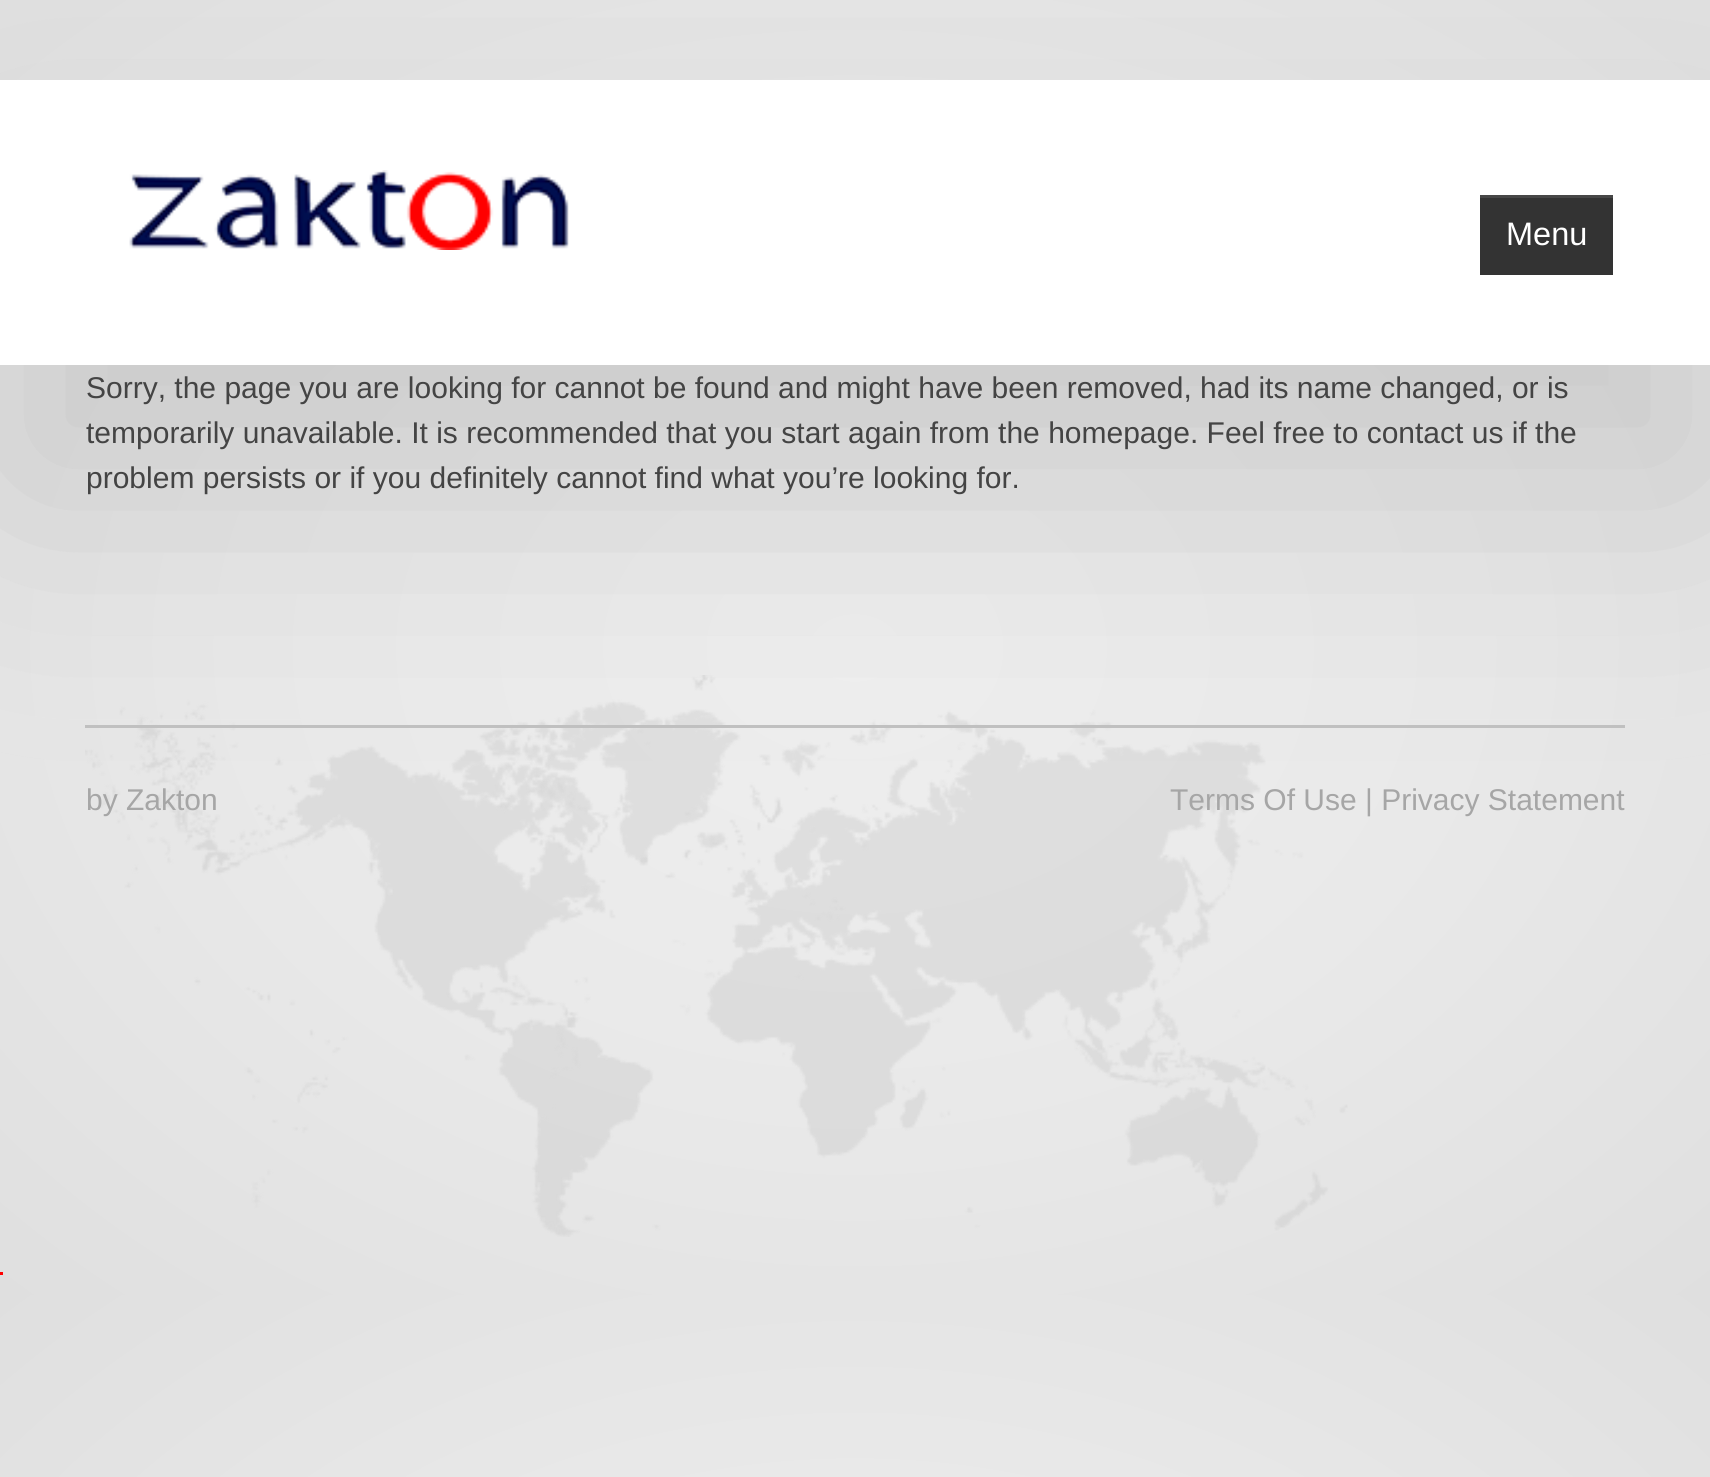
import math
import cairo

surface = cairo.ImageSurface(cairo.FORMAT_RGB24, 1710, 1477)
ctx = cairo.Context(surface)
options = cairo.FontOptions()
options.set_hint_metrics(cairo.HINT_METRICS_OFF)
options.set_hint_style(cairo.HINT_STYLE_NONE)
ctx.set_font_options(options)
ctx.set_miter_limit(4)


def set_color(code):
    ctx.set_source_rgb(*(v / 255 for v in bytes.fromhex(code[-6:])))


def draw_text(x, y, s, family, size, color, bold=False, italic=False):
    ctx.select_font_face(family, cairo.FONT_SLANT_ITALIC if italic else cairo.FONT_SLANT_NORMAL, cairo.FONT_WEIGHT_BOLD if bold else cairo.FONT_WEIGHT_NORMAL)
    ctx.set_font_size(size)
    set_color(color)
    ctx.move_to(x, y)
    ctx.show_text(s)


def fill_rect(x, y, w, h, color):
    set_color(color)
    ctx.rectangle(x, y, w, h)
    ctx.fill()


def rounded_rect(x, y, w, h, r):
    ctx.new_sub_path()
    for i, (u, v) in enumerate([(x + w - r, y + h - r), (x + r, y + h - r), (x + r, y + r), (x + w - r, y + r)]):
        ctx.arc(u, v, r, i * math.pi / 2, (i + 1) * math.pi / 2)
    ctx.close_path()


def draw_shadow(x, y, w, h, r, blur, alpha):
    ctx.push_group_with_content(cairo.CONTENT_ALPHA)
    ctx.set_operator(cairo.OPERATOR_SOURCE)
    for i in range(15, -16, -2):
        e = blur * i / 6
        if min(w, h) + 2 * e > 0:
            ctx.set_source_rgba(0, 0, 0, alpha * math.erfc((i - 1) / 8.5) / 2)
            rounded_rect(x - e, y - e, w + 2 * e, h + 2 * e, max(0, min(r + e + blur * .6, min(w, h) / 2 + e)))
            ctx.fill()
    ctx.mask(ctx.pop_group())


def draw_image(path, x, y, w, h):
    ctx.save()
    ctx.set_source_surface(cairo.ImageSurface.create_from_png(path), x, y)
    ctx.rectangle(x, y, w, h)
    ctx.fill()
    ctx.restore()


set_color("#ffffff")
ctx.paint()
gradient = cairo.RadialGradient(0, 0, 0, 0, 0, 1)
gradient.set_matrix(cairo.Matrix(1 / 1209, 0, 0, 1 / 916, -1 * 855 / 1209, -1 * 648 / 916))
gradient.add_color_stop_rgba(0, 0.937, 0.937, 0.937, 1)
gradient.add_color_stop_rgba(0.5, 0.914, 0.914, 0.914, 1)
gradient.add_color_stop_rgba(1, 0.875, 0.875, 0.875, 1)
ctx.set_source(gradient)
ctx.rectangle(0, 0, 1710, 1295)
ctx.fill()
gradient = cairo.RadialGradient(0, 0, 0, 0, 0, 1)
gradient.set_matrix(cairo.Matrix(1 / 1209, 0, 0, 1 / 916, -1 * 855 / 1209, -1 * 1943 / 916))
gradient.add_color_stop_rgba(0, 0.937, 0.937, 0.937, 1)
gradient.add_color_stop_rgba(0.5, 0.914, 0.914, 0.914, 1)
gradient.add_color_stop_rgba(1, 0.875, 0.875, 0.875, 1)
ctx.set_source(gradient)
ctx.rectangle(0, 1295, 1710, 182)
ctx.fill()
set_color("#cacaca")
draw_shadow(3, 205, 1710, 285, 0, 125, 1)
fill_rect(0, 80, 1710, 285, "#ffffff")
draw_image("assets/img1.png", 129, 170, 440, 80)
fill_rect(1480, 198, 133, 77, "#333333")
fill_rect(1480, 195, 133, 3, "#474747")
draw_text(1506, 245, "Menu", "Liberation Sans", 32.5, "#ffffff")
draw_text(86, 398, "Sorry, the page you are looking for cannot be found and might have been removed, had its name changed, or is", "Liberation Sans", 30, "#444444")
draw_text(86, 443, "temporarily unavailable. It is recommended that you start again from the homepage. Feel free to contact us if the", "Liberation Sans", 30, "#444444")
draw_text(86, 488, "problem persists or if you definitely cannot find what you’re looking for.", "Liberation Sans", 30, "#444444")
draw_image("assets/img2.png", 85, 675, 1263, 562)
fill_rect(85, 725, 1540, 3, "#c0c0c0")
draw_text(86, 810, "by Zakton", "Liberation Sans", 30, "#a6a6a6")
draw_text(1170, 810, "Terms Of Use | Privacy Statement", "Liberation Sans", 30, "#a6a6a6")
fill_rect(0, 1272, 3, 3, "#ff0000")
surface.write_to_png("output.png")
